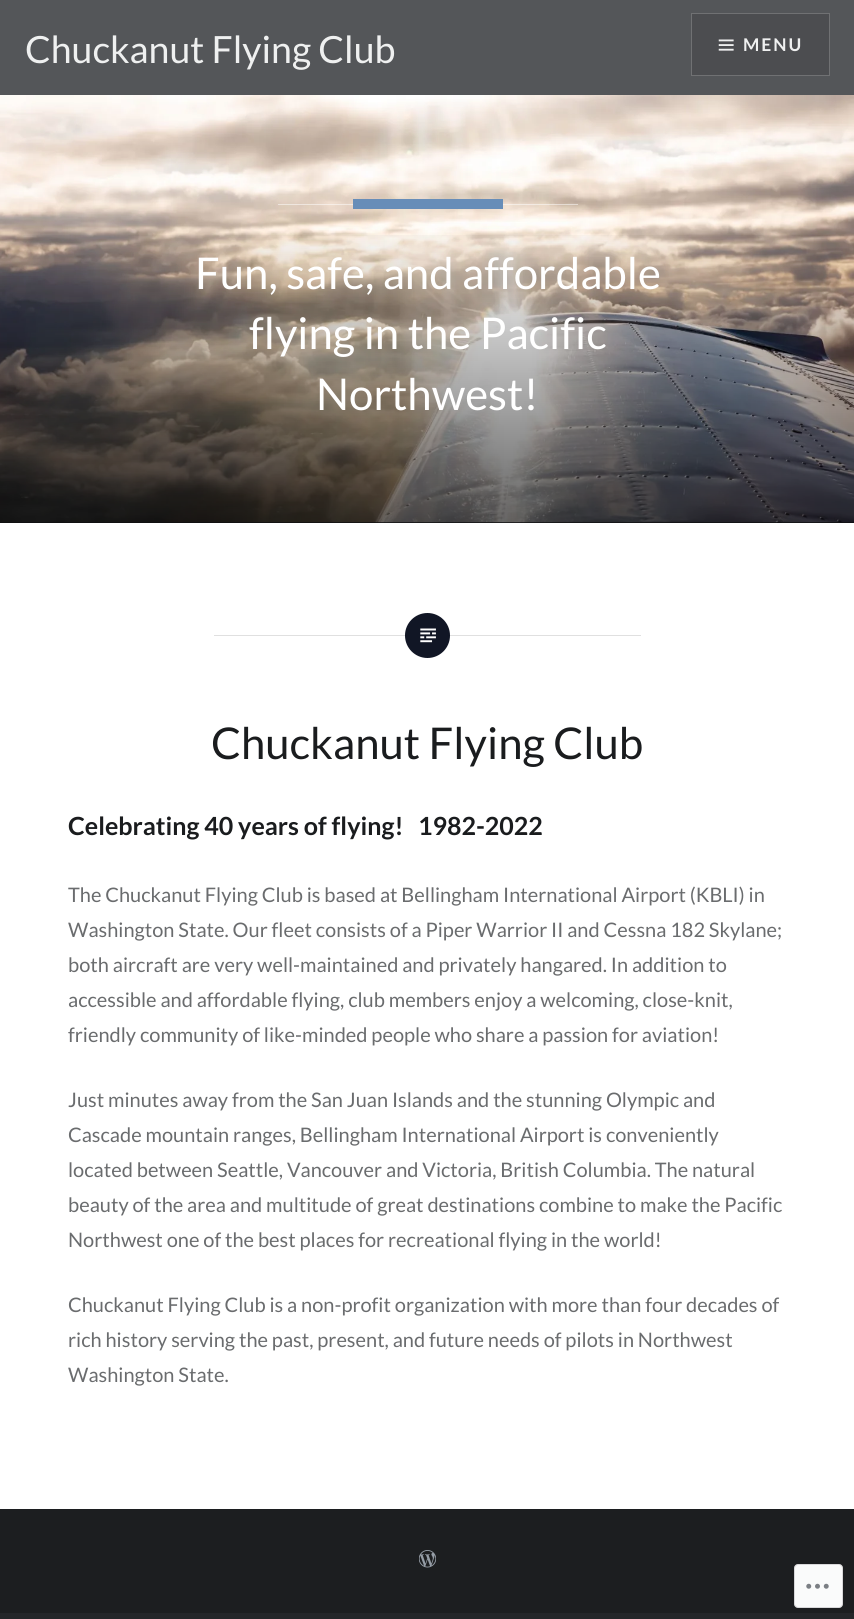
import math
import cairo

surface = cairo.ImageSurface(cairo.FORMAT_RGB24, 854, 1619)
ctx = cairo.Context(surface)
options = cairo.FontOptions()
options.set_hint_metrics(cairo.HINT_METRICS_OFF)
options.set_hint_style(cairo.HINT_STYLE_NONE)
ctx.set_font_options(options)
ctx.set_miter_limit(4)


def set_color(code):
    ctx.set_source_rgb(*(v / 255 for v in bytes.fromhex(code[-6:])))


def draw_text(x, y, s, family, size, color, bold=False, italic=False):
    ctx.select_font_face(family, cairo.FONT_SLANT_ITALIC if italic else cairo.FONT_SLANT_NORMAL, cairo.FONT_WEIGHT_BOLD if bold else cairo.FONT_WEIGHT_NORMAL)
    ctx.set_font_size(size)
    set_color(color)
    ctx.move_to(x, y)
    ctx.show_text(s)


def draw_spaced(x, y, s, letter, word):
    ctx.move_to(x, y)
    for ch in s:
        ctx.show_text(ch)
        ctx.rel_move_to(letter + word * (ch == ' '), 0)


def fill_rect(x, y, w, h, color):
    set_color(color)
    ctx.rectangle(x, y, w, h)
    ctx.fill()


def rounded_rect(x, y, w, h, r):
    ctx.new_sub_path()
    for i, (u, v) in enumerate([(x + w - r, y + h - r), (x + r, y + h - r), (x + r, y + r), (x + w - r, y + r)]):
        ctx.arc(u, v, r, i * math.pi / 2, (i + 1) * math.pi / 2)
    ctx.close_path()


def draw_image(path, x, y, w, h):
    ctx.save()
    ctx.set_source_surface(cairo.ImageSurface.create_from_png(path), x, y)
    ctx.rectangle(x, y, w, h)
    ctx.fill()
    ctx.restore()


set_color("#242629")
ctx.paint()
fill_rect(0, 523, 854, 986, "#ffffff")
fill_rect(0, 0, 854, 95, "#545659")
draw_text(25, 63, "Chuckanut Flying Club", "Lato", 37.5, "#eff0f0")
set_color("#4c4d50")
ctx.rectangle(691.5, 13.5, 138, 62)
ctx.fill_preserve()
set_color("#707173")
ctx.set_line_width(1)
ctx.stroke()
draw_image("assets/img1.png", 718, 39, 16, 12)
ctx.select_font_face("Lato", cairo.FONT_SLANT_NORMAL, cairo.FONT_WEIGHT_BOLD)
ctx.set_font_size(17.5)
set_color("#eff0f0")
draw_spaced(743, 51, "MENU", 2, 0)
draw_image("assets/img2.png", 0, 95, 854, 428)
gradient = cairo.LinearGradient(428, 224, 428, 523)
gradient.add_color_stop_rgba(0, 0, 0, 0, 0)
gradient.add_color_stop_rgba(1, 0, 0, 0, 0.6)
ctx.set_source(gradient)
ctx.rectangle(0, 235, 854, 288)
ctx.fill()
ctx.set_source_rgba(1, 1, 1, 0.5)
ctx.rectangle(278, 204, 300, 1)
ctx.fill()
fill_rect(353, 199, 150, 10, "#678db8")
draw_text(195, 289, "Fun, safe, and affordable", "Lato", 43.75, "#ffffff")
draw_text(249, 349, "flying in the Pacific", "Lato", 43.75, "#ffffff")
draw_text(316, 410, "Northwest!", "Lato", 43.75, "#ffffff")
fill_rect(214, 635, 427, 1, "#e0e0e0")
set_color("#111625")
ctx.new_path()
ctx.arc(427.5, 635.5, 22.5, 0, 2 * math.pi)
ctx.fill()
draw_image("assets/img3.png", 420, 628, 16, 15)
draw_text(211, 759, "Chuckanut Flying Club", "Lato", 43.75, "#1a1c1e")
draw_text(68, 835, "Celebrating 40 years of flying!   1982-2022", "Lato", 25, "#1a1c1e", bold=True)
draw_text(68, 902, "The Chuckanut Flying Club is based at Bellingham International Airport (KBLI) in", "Lato", 20, "#6a6c6e")
draw_text(68, 937, "Washington State. Our fleet consists of a Piper Warrior II and Cessna 182 Skylane;", "Lato", 20, "#6a6c6e")
draw_text(68, 972, "both aircraft are very well-maintained and privately hangared. In addition to", "Lato", 20, "#6a6c6e")
draw_text(68, 1007, "accessible and affordable flying, club members enjoy a welcoming, close-knit,", "Lato", 20, "#6a6c6e")
draw_text(68, 1042, "friendly community of like-minded people who share a passion for aviation!", "Lato", 20, "#6a6c6e")
draw_text(68, 1107, "Just minutes away from the San Juan Islands and the stunning Olympic and", "Lato", 20, "#6a6c6e")
draw_text(68, 1142, "Cascade mountain ranges, Bellingham International Airport is conveniently", "Lato", 20, "#6a6c6e")
draw_text(68, 1177, "located between Seattle, Vancouver and Victoria, British Columbia. The natural", "Lato", 20, "#6a6c6e")
draw_text(68, 1212, "beauty of the area and multitude of great destinations combine to make the Pacific", "Lato", 20, "#6a6c6e")
draw_text(68, 1247, "Northwest one of the best places for recreational flying in the world!", "Lato", 20, "#6a6c6e")
draw_text(68, 1312, "Chuckanut Flying Club is a non-profit organization with more than four decades of", "Lato", 20, "#6a6c6e")
draw_text(68, 1347, "rich history serving the past, present, and future needs of pilots in Northwest", "Lato", 20, "#6a6c6e")
draw_text(68, 1382, "Washington State.", "Lato", 20, "#6a6c6e")
fill_rect(0, 1509, 854, 104, "#1c1e20")
draw_image("assets/img4.png", 419, 1550, 17, 18)
set_color("#fafbfb")
rounded_rect(794.5, 1564.5, 48, 43, 3.5)
ctx.fill_preserve()
set_color("#d8d8da")
ctx.stroke()
draw_image("assets/img5.png", 806, 1583, 23, 6)
surface.write_to_png("output.png")
